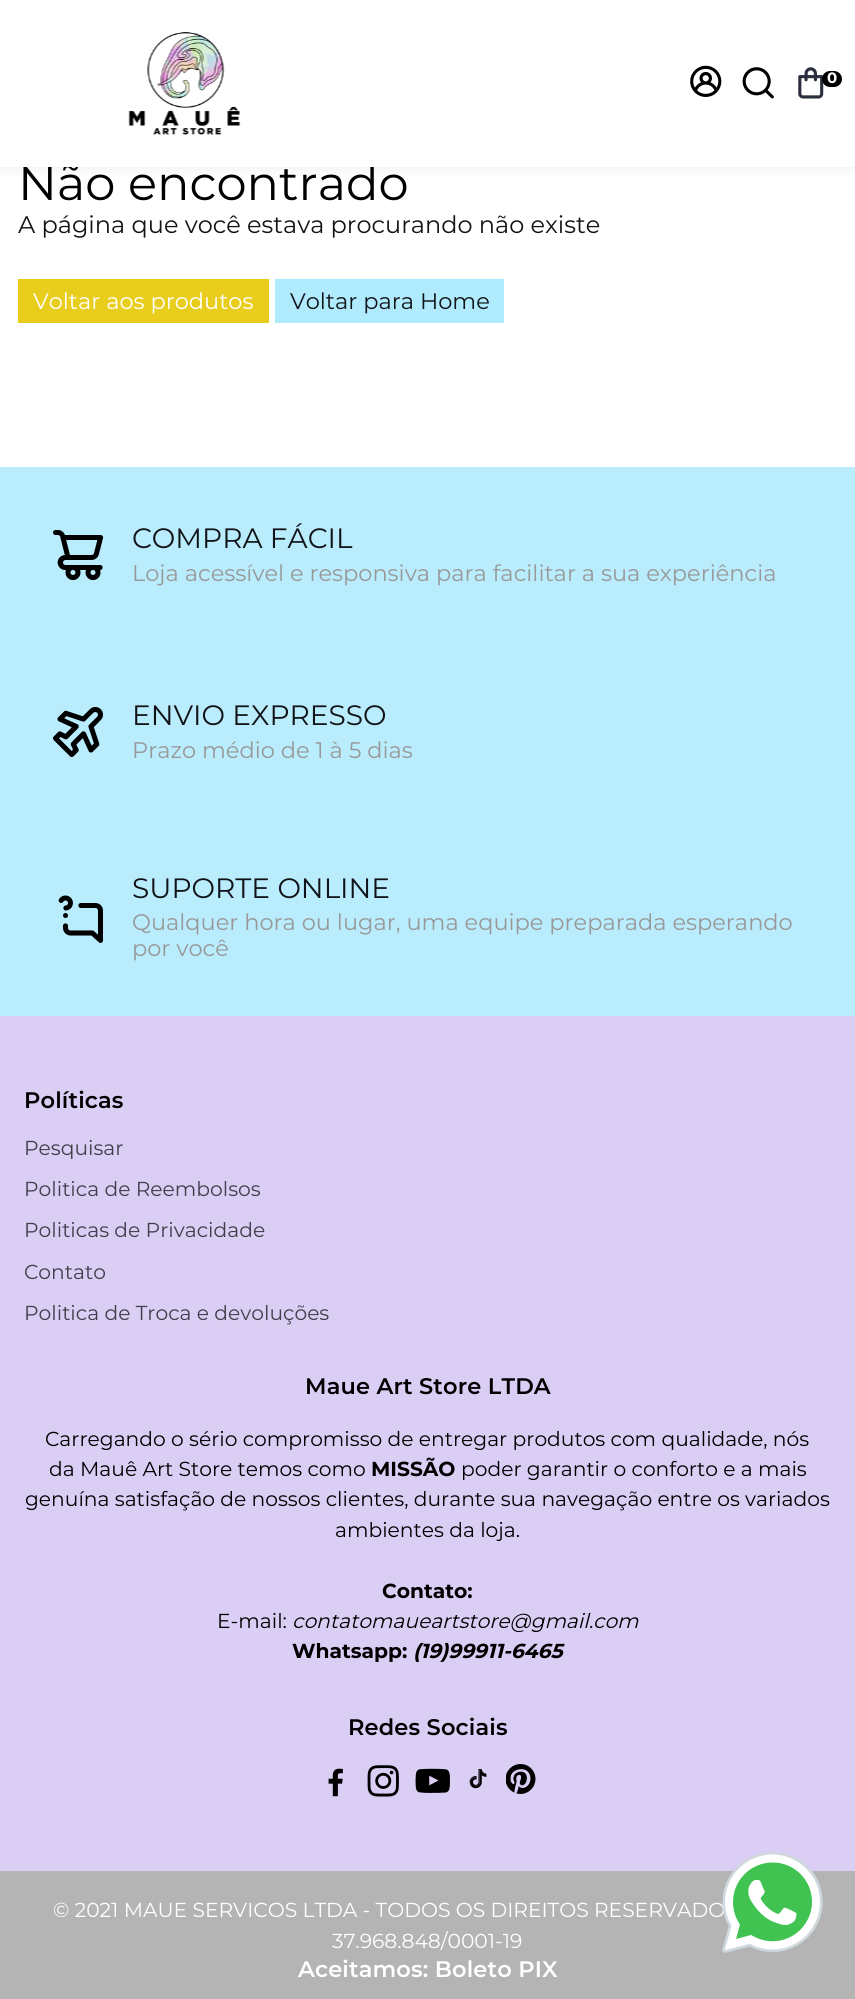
import math
import cairo

surface = cairo.ImageSurface(cairo.FORMAT_RGB24, 855, 1999)
ctx = cairo.Context(surface)
options = cairo.FontOptions()
options.set_hint_metrics(cairo.HINT_METRICS_OFF)
options.set_hint_style(cairo.HINT_STYLE_NONE)
ctx.set_font_options(options)
ctx.set_miter_limit(4)


def set_color(code):
    ctx.set_source_rgb(*(v / 255 for v in bytes.fromhex(code[-6:])))


def draw_text(x, y, s, family, size, color, bold=False, italic=False):
    ctx.select_font_face(family, cairo.FONT_SLANT_ITALIC if italic else cairo.FONT_SLANT_NORMAL, cairo.FONT_WEIGHT_BOLD if bold else cairo.FONT_WEIGHT_NORMAL)
    ctx.set_font_size(size)
    set_color(color)
    ctx.move_to(x, y)
    ctx.show_text(s)


def draw_spaced(x, y, s, letter, word):
    ctx.move_to(x, y)
    for ch in s:
        ctx.show_text(ch)
        ctx.rel_move_to(letter + word * (ch == ' '), 0)


def fill_rect(x, y, w, h, color):
    set_color(color)
    ctx.rectangle(x, y, w, h)
    ctx.fill()


def rounded_rect(x, y, w, h, r):
    ctx.new_sub_path()
    for i, (u, v) in enumerate([(x + w - r, y + h - r), (x + r, y + h - r), (x + r, y + r), (x + w - r, y + r)]):
        ctx.arc(u, v, r, i * math.pi / 2, (i + 1) * math.pi / 2)
    ctx.close_path()


def draw_shadow(x, y, w, h, r, blur, alpha):
    ctx.push_group_with_content(cairo.CONTENT_ALPHA)
    ctx.set_operator(cairo.OPERATOR_SOURCE)
    for i in range(15, -16, -2):
        e = blur * i / 6
        if min(w, h) + 2 * e > 0:
            ctx.set_source_rgba(0, 0, 0, alpha * math.erfc((i - 1) / 8.5) / 2)
            rounded_rect(x - e, y - e, w + 2 * e, h + 2 * e, max(0, min(r + e + blur * .6, min(w, h) / 2 + e)))
            ctx.fill()
    ctx.mask(ctx.pop_group())


def draw_image(path, x, y, w, h):
    ctx.save()
    ctx.set_source_surface(cairo.ImageSurface.create_from_png(path), x, y)
    ctx.rectangle(x, y, w, h)
    ctx.fill()
    ctx.restore()


set_color("#ffffff")
ctx.paint()
set_color("#000000")
draw_shadow(0, 0, 855, 167, 0, 7.5, 0.08)
draw_text(18, 200, "Não encontrado", "Montserrat", 48, "#000000")
fill_rect(0, 0, 855, 167, "#ffffff")
draw_image("assets/img1.png", 128, 32, 113, 103)
draw_image("assets/img2.png", 690, 65, 32, 32)
draw_image("assets/img3.png", 742, 67, 32, 32)
draw_image("assets/img4.png", 798, 67, 26, 32)
set_color("#000000")
rounded_rect(822, 71, 20, 16, 8)
ctx.fill()
draw_text(827, 83, "0", "Montserrat", 15, "#ffffff", bold=True)
draw_text(18, 233, "A página que você estava procurando não existe", "Montserrat", 24, "#121317")
fill_rect(18, 279, 251, 44, "#e9cd1d")
draw_text(33, 309, "Voltar aos produtos", "Montserrat", 22.5, "#ffffff")
fill_rect(275, 279, 229, 44, "#afeafd")
draw_text(290, 309, "Voltar para Home", "Montserrat", 22.5, "#121317")
fill_rect(0, 467, 855, 549, "#b9ecfd")
draw_image("assets/img5.png", 53, 530, 51, 51)
draw_text(132, 548, "COMPRA FÁCIL", "Montserrat", 28, "#121317")
draw_text(132, 581, "Loja acessível e responsiva para facilitar a sua experiência", "Montserrat", 22.5, "#989898")
draw_image("assets/img6.png", 53, 707, 50, 50)
draw_text(132, 725, "ENVIO EXPRESSO", "Montserrat", 28, "#121317")
draw_text(132, 758, "Prazo médio de 1 à 5 dias", "Montserrat", 22.5, "#989898")
draw_image("assets/img7.png", 58, 895, 45, 48)
draw_text(132, 898, "SUPORTE ONLINE", "Montserrat", 28, "#121317")
draw_text(132, 930, "Qualquer hora ou lugar, uma equipe preparada esperando", "Montserrat", 22.5, "#989898")
draw_text(132, 956, "por você", "Montserrat", 22.5, "#989898")
fill_rect(0, 1016, 855, 855, "#dbcef5")
ctx.select_font_face("Montserrat SemiBold")
set_color("#000000")
draw_spaced(24, 1108, "Políticas", 0.15, 0)
draw_text(24, 1155, "Pesquisar", "Montserrat", 20.25, "#423e4a")
draw_text(24, 1196, "Politica de Reembolsos", "Montserrat", 20.25, "#423e4a")
draw_text(24, 1237, "Politicas de Privacidade", "Montserrat", 20.25, "#423e4a")
draw_text(24, 1279, "Contato", "Montserrat", 20.25, "#423e4a")
draw_text(24, 1320, "Politica de Troca e devoluções", "Montserrat", 20.25, "#423e4a")
ctx.select_font_face("Montserrat SemiBold")
ctx.set_font_size(22.5)
set_color("#000000")
draw_spaced(305, 1394, "Maue Art Store LTDA", 0.15, 0)
draw_text(45, 1446, "Carregando o sério compromisso de entregar produtos com qualidade, nós", "Montserrat", 20.25, "#000000")
draw_text(49, 1476, "da Mauê Art Store temos como", "Montserrat", 20.25, "#000000")
draw_text(371, 1476, "MISSÃO", "Montserrat", 20.25, "#000000", bold=True)
draw_text(461, 1476, "poder garantir o conforto e a mais", "Montserrat", 20.25, "#000000")
draw_text(25, 1506, "genuína satisfação de nossos clientes, durante sua navegação entre os variados", "Montserrat", 20.25, "#000000")
draw_text(335, 1537, "ambientes da loja.", "Montserrat", 20.25, "#000000")
draw_text(382, 1598, "Contato:", "Montserrat", 20.25, "#000000", bold=True)
draw_text(217, 1628, "E-mail:", "Montserrat", 20.25, "#000000")
draw_text(292, 1628, "contatomaueartstore@gmail.com", "Montserrat", 20.25, "#000000", italic=True)
draw_text(292, 1658, "Whatsapp:", "Montserrat", 20.25, "#000000", bold=True)
draw_text(413, 1658, "(19)99911-6465", "Montserrat", 20.25, "#000000", bold=True, italic=True)
ctx.select_font_face("Montserrat SemiBold")
ctx.set_font_size(22.5)
draw_spaced(348, 1735, "Redes Sociais", 0.15, 0)
draw_image("assets/img8.png", 328, 1768, 15, 29)
draw_image("assets/img9.png", 367, 1765, 32, 32)
draw_image("assets/img10.png", 415, 1768, 35, 25)
draw_image("assets/img11.png", 469, 1769, 18, 20)
draw_image("assets/img12.png", 506, 1764, 30, 30)
fill_rect(0, 1871, 855, 128, "#b4b4b4")
draw_text(53, 1917, "© 2021 MAUE SERVICOS LTDA - TODOS OS DIREITOS RESERVADO", "Montserrat", 20.25, "#ffffff")
draw_text(332, 1948, "37.968.848/0001-19", "Montserrat", 20.25, "#ffffff")
ctx.select_font_face("Montserrat SemiBold")
ctx.set_font_size(22.5)
draw_spaced(298, 1977, "Aceitamos: Boleto PIX", 0.15, 0)
draw_image("assets/img13.png", 722, 1852, 101, 101)
surface.write_to_png("output.png")
